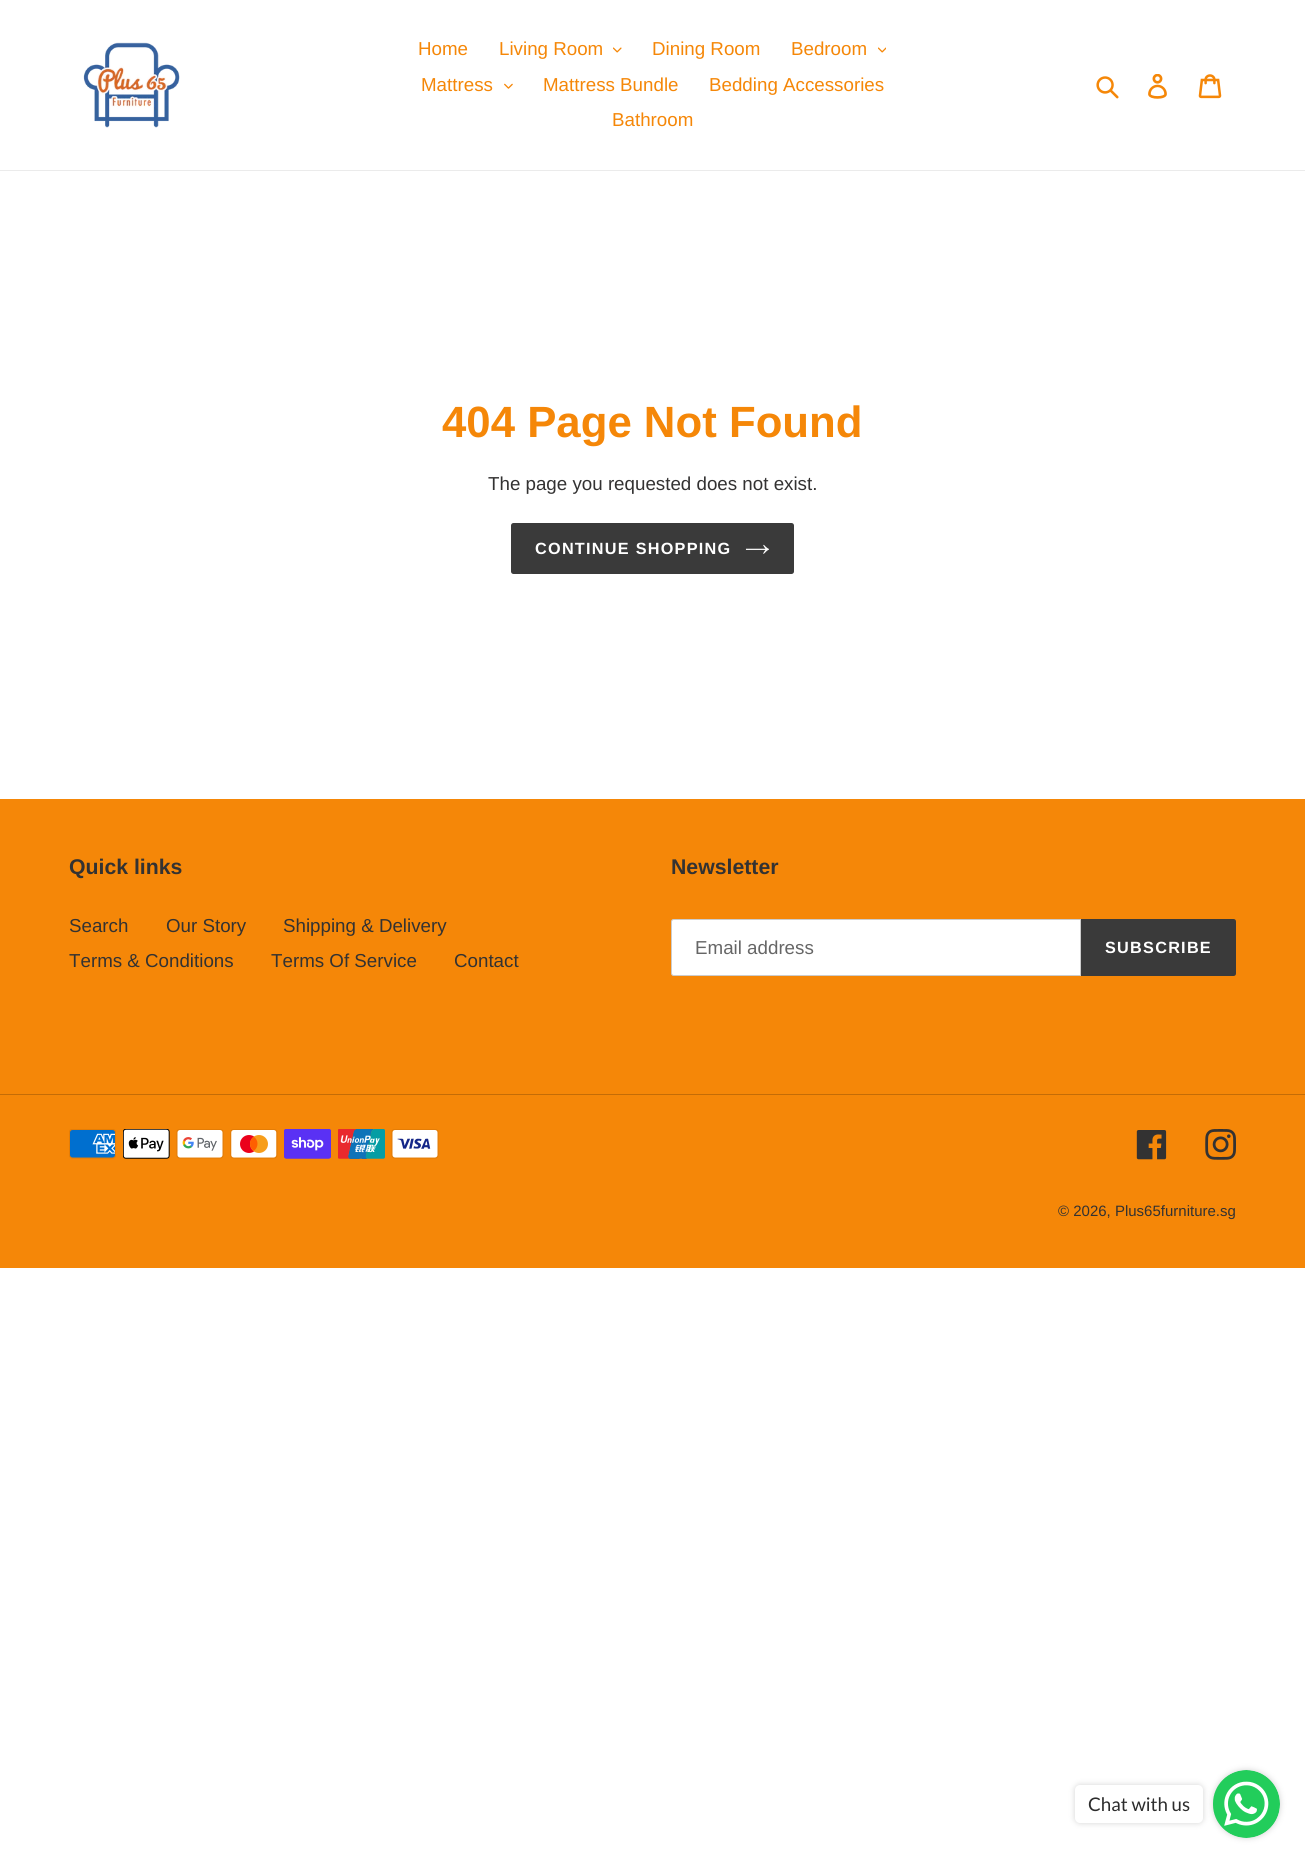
import math
import cairo

surface = cairo.ImageSurface(cairo.FORMAT_RGB24, 1305, 1862)
ctx = cairo.Context(surface)
options = cairo.FontOptions()
options.set_hint_metrics(cairo.HINT_METRICS_OFF)
options.set_hint_style(cairo.HINT_STYLE_NONE)
ctx.set_font_options(options)
ctx.set_miter_limit(4)


def set_color(code):
    ctx.set_source_rgb(*(v / 255 for v in bytes.fromhex(code[-6:])))


def draw_text(x, y, s, family, size, color, bold=False, italic=False):
    ctx.select_font_face(family, cairo.FONT_SLANT_ITALIC if italic else cairo.FONT_SLANT_NORMAL, cairo.FONT_WEIGHT_BOLD if bold else cairo.FONT_WEIGHT_NORMAL)
    ctx.set_font_size(size)
    set_color(color)
    ctx.move_to(x, y)
    ctx.show_text(s)


def draw_spaced(x, y, s, letter, word):
    ctx.move_to(x, y)
    for ch in s:
        ctx.show_text(ch)
        ctx.rel_move_to(letter + word * (ch == ' '), 0)


def fill_rect(x, y, w, h, color):
    set_color(color)
    ctx.rectangle(x, y, w, h)
    ctx.fill()


def rounded_rect(x, y, w, h, r):
    ctx.new_sub_path()
    for i, (u, v) in enumerate([(x + w - r, y + h - r), (x + r, y + h - r), (x + r, y + r), (x + w - r, y + r)]):
        ctx.arc(u, v, r, i * math.pi / 2, (i + 1) * math.pi / 2)
    ctx.close_path()


def draw_shadow(x, y, w, h, r, blur, alpha):
    ctx.push_group_with_content(cairo.CONTENT_ALPHA)
    ctx.set_operator(cairo.OPERATOR_SOURCE)
    for i in range(15, -16, -2):
        e = blur * i / 6
        if min(w, h) + 2 * e > 0:
            ctx.set_source_rgba(0, 0, 0, alpha * math.erfc((i - 1) / 8.5) / 2)
            rounded_rect(x - e, y - e, w + 2 * e, h + 2 * e, max(0, min(r + e + blur * .6, min(w, h) / 2 + e)))
            ctx.fill()
    ctx.mask(ctx.pop_group())


def draw_image(path, x, y, w, h):
    ctx.save()
    ctx.set_source_surface(cairo.ImageSurface.create_from_png(path), x, y)
    ctx.rectangle(x, y, w, h)
    ctx.fill()
    ctx.restore()


set_color("#ffffff")
ctx.paint()
fill_rect(0, 170, 1305, 1, "#ebebeb")
draw_image("assets/img1.png", 83, 42, 97, 86)
draw_text(418, 55, "Home", "Liberation Sans", 18.75, "#f58708")
draw_text(499, 55, "Living Room", "Liberation Sans", 18.75, "#f58708")
draw_image("assets/img2.png", 613, 47, 9, 6)
draw_text(652, 55, "Dining Room", "Liberation Sans", 18.75, "#f58708")
draw_text(791, 55, "Bedroom", "Liberation Sans", 18.75, "#f58708")
draw_image("assets/img3.png", 878, 47, 8, 6)
draw_text(421, 91, "Mattress", "Liberation Sans", 18.75, "#f58708")
draw_image("assets/img4.png", 504, 83, 9, 6)
draw_text(543, 91, "Mattress Bundle", "Liberation Sans", 18.75, "#f58708")
draw_text(709, 91, "Bedding Accessories", "Liberation Sans", 18.75, "#f58708")
draw_text(612, 126, "Bathroom", "Liberation Sans", 18.75, "#f58708")
draw_image("assets/img5.png", 1096, 76, 23, 23)
draw_image("assets/img6.png", 1148, 74, 19, 25)
draw_image("assets/img7.png", 1198, 74, 24, 25)
draw_text(442, 437, "404 Page Not Found", "Liberation Sans", 43.75, "#f58708", bold=True)
draw_text(488, 490, "The page you requested does not exist.", "Liberation Sans", 18.75, "#333232")
set_color("#3a3a3a")
rounded_rect(511, 523, 283, 51, 2.5)
ctx.fill()
ctx.select_font_face("Liberation Sans", cairo.FONT_SLANT_NORMAL, cairo.FONT_WEIGHT_BOLD)
ctx.set_font_size(16.25)
set_color("#ffffff")
draw_spaced(535, 554, "CONTINUE SHOPPING", 1.25, 0)
draw_image("assets/img8.png", 745, 544, 24, 10)
fill_rect(0, 799, 1305, 469, "#f58708")
draw_text(69, 874, "Quick links", "Liberation Sans", 21.25, "#333232", bold=True)
draw_text(69, 932, "Search", "Liberation Sans", 18.75, "#333232")
draw_text(166, 932, "Our Story", "Liberation Sans", 18.75, "#333232")
draw_text(283, 932, "Shipping & Delivery", "Liberation Sans", 18.75, "#333232")
draw_text(69, 967, "Terms & Conditions", "Liberation Sans", 18.75, "#333232")
draw_text(271, 967, "Terms Of Service", "Liberation Sans", 18.75, "#333232")
draw_text(454, 967, "Contact", "Liberation Sans", 18.75, "#333232")
draw_text(671, 874, "Newsletter", "Liberation Sans", 21.25, "#333232", bold=True)
set_color("#ffffff")
ctx.new_path()
ctx.move_to(673.5, 919.5)
ctx.line_to(1080.5, 919.5)
ctx.line_to(1080.5, 975.5)
ctx.line_to(673.5, 975.5)
ctx.curve_to(672.5, 975.5, 671.5, 974.5, 671.5, 973.5)
ctx.line_to(671.5, 921.5)
ctx.curve_to(671.5, 920.5, 672.5, 919.5, 673.5, 919.5)
ctx.close_path()
ctx.fill_preserve()
set_color("#cccccc")
ctx.set_line_width(1)
ctx.stroke()
draw_text(695, 954, "Email address", "Liberation Sans", 18.75, "#666666")
set_color("#3a3a3a")
ctx.new_path()
ctx.move_to(1081, 919)
ctx.line_to(1233.5, 919)
ctx.curve_to(1235, 919, 1236, 920, 1236, 921.5)
ctx.line_to(1236, 973.5)
ctx.curve_to(1236, 975, 1235, 976, 1233.5, 976)
ctx.line_to(1081, 976)
ctx.close_path()
ctx.fill()
ctx.select_font_face("Liberation Sans", cairo.FONT_SLANT_NORMAL, cairo.FONT_WEIGHT_BOLD)
ctx.set_font_size(16.25)
set_color("#ffffff")
draw_spaced(1105, 953, "SUBSCRIBE", 1.25, 0)
fill_rect(0, 1094, 1305, 1, "#c46c06")
draw_image("assets/img9.png", 69, 1129, 47, 30)
draw_image("assets/img10.png", 123, 1129, 47, 30)
draw_image("assets/img11.png", 176, 1129, 48, 30)
draw_image("assets/img12.png", 230, 1129, 48, 30)
draw_image("assets/img13.png", 284, 1129, 47, 30)
draw_image("assets/img14.png", 338, 1129, 47, 30)
draw_image("assets/img15.png", 391, 1129, 48, 30)
draw_image("assets/img16.png", 1136, 1130, 31, 30)
draw_image("assets/img17.png", 1205, 1129, 31, 31)
draw_text(1058, 1216, "© 2026, Plus65furniture.sg", "Liberation Sans", 15, "#333232")
set_color("#d3d3d3")
draw_shadow(1213, 1770, 67, 68, 33.5, 3, 1)
draw_shadow(1075, 1785, 128, 38, 5, 3, 1)
set_color("#ffffff")
rounded_rect(1075, 1785, 128, 38, 5)
ctx.fill()
draw_text(1088, 1811, "Chat with us", "Lato", 18.75, "#2c2c2c")
draw_image("assets/img18.png", 1213, 1770, 67, 68)
surface.write_to_png("output.png")
